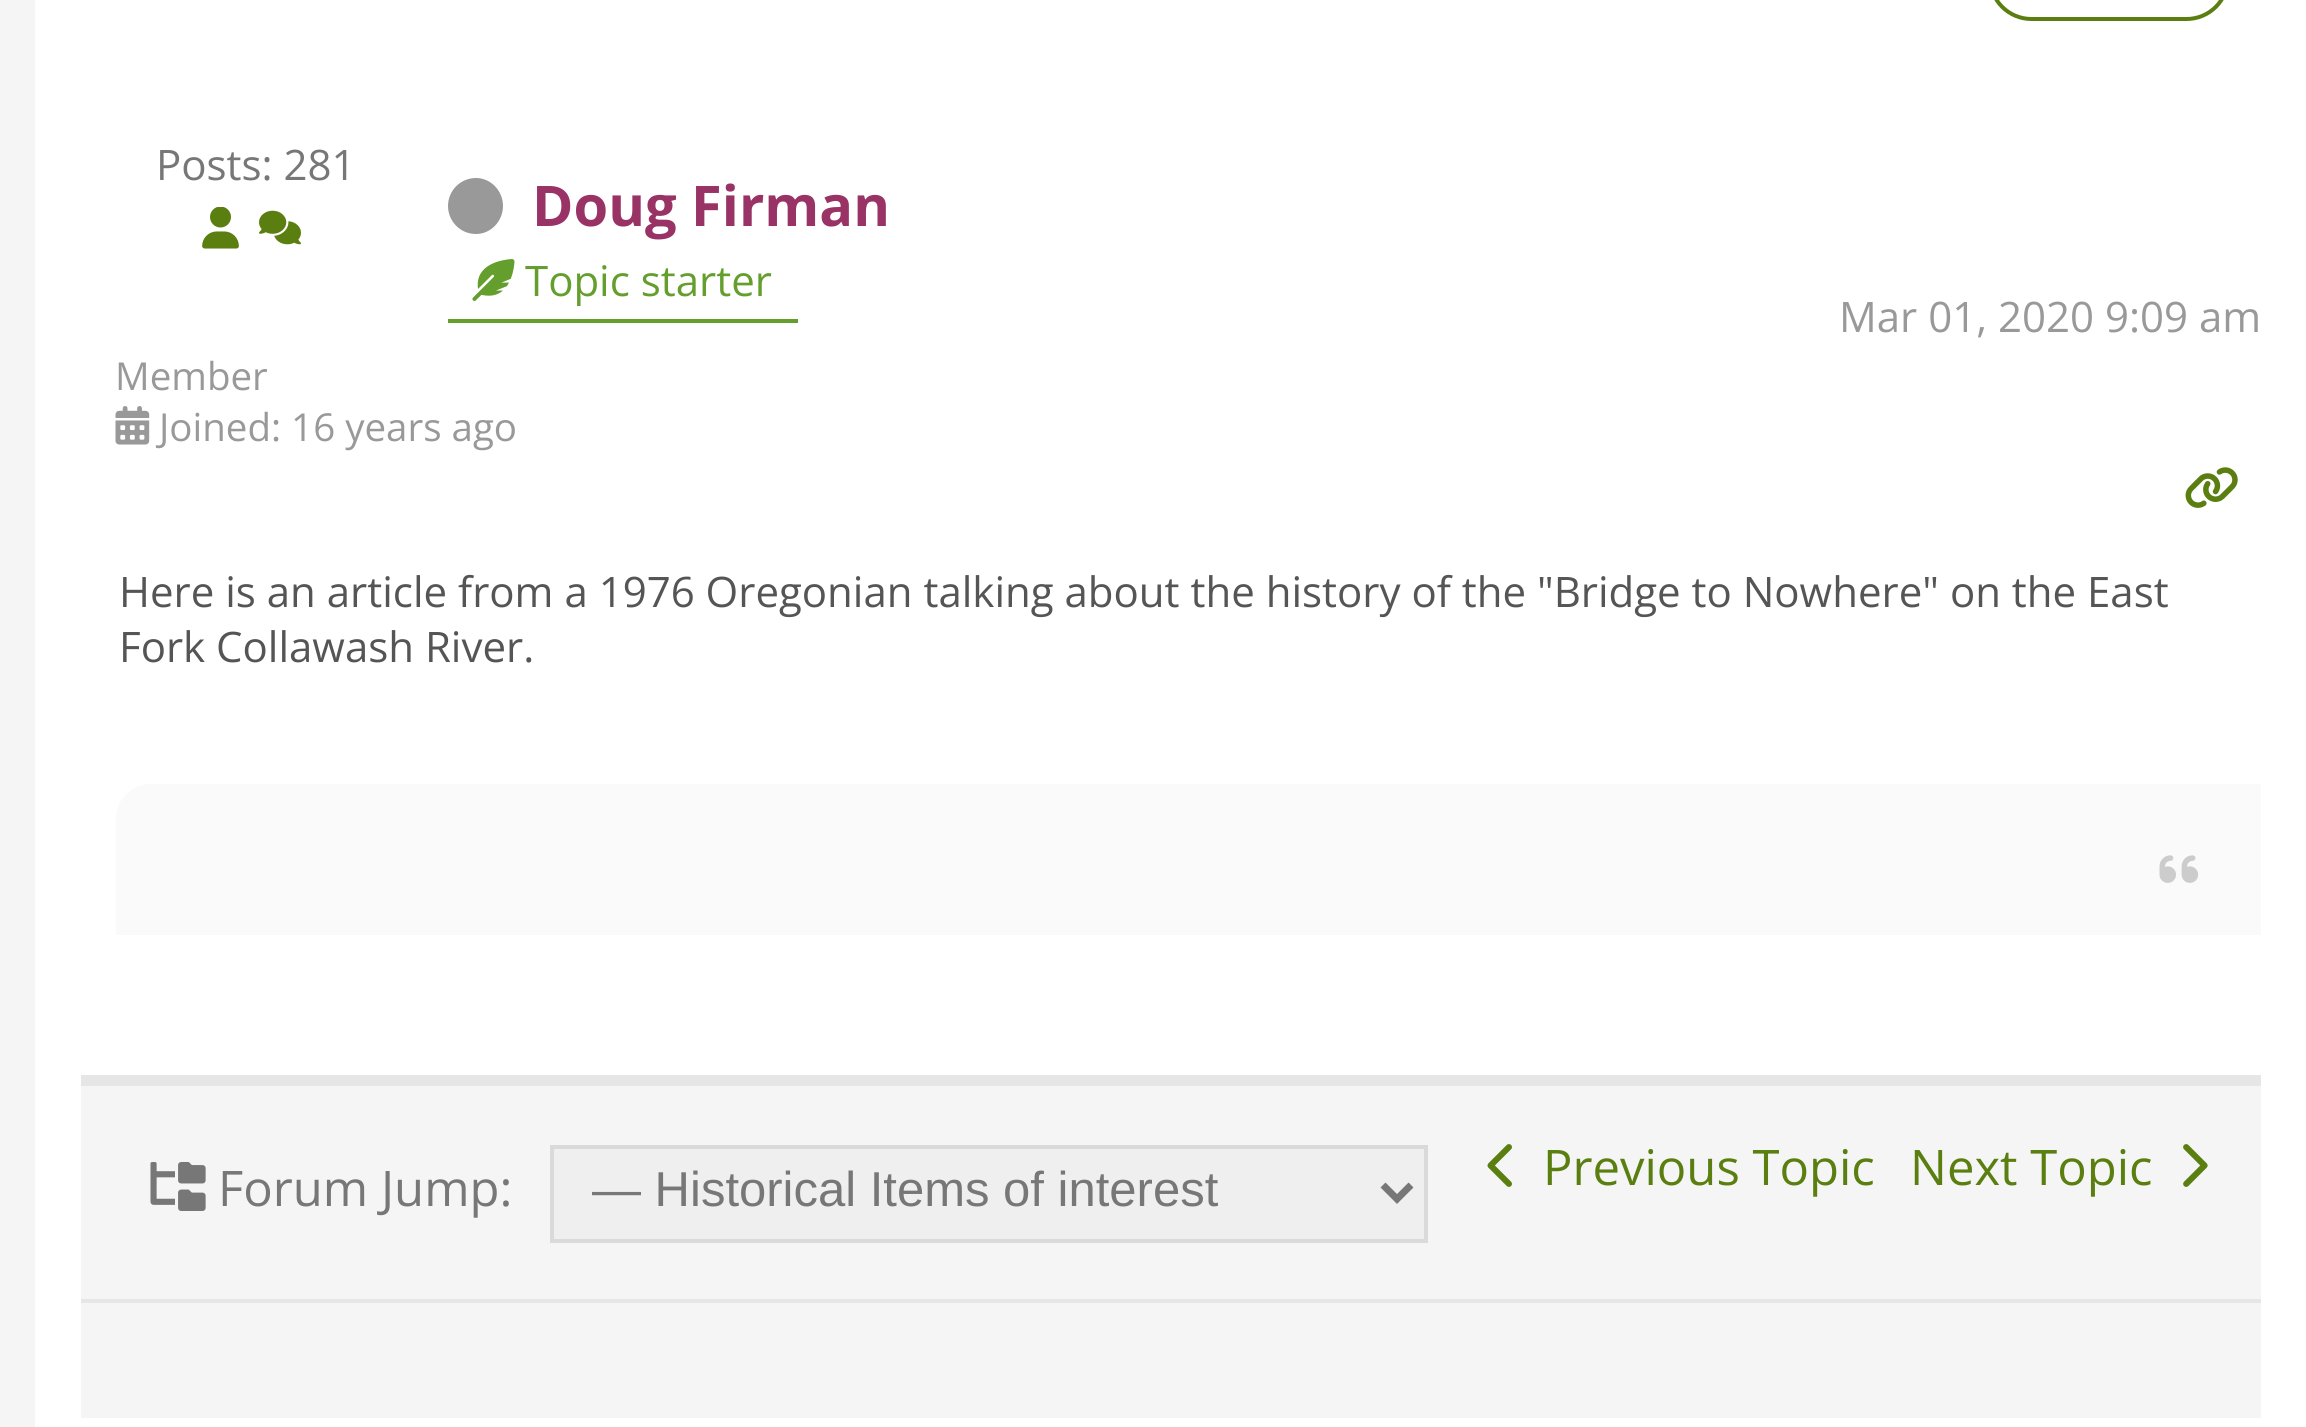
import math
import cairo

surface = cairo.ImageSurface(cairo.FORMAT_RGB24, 2306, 1427)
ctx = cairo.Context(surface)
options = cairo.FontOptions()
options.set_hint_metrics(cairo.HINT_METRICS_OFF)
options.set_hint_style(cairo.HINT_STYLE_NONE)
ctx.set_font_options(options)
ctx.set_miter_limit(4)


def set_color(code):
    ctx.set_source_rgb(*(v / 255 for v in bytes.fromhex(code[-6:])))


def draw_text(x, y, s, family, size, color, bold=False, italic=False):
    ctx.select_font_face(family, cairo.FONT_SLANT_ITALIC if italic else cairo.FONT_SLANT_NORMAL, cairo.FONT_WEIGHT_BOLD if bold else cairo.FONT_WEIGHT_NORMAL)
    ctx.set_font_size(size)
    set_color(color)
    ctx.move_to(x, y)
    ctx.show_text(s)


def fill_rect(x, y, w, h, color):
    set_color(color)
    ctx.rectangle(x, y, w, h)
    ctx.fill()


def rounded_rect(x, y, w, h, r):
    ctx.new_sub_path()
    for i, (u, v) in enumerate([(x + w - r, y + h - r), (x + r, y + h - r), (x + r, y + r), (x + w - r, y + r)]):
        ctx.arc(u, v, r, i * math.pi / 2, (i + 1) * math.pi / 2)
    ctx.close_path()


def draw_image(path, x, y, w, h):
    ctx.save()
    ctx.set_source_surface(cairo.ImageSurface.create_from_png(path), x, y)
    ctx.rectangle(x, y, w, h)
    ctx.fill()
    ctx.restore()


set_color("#f5f5f5")
ctx.paint()
fill_rect(35, 0, 2271, 1427, "#ffffff")
rounded_rect(1990, -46, 238, 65, 41.5)
set_color("#5a7f10")
ctx.set_line_width(4)
ctx.stroke()
draw_text(156, 180, "Posts: 281", "Open Sans", 42, "#777777")
draw_image("assets/img1.png", 202, 207, 37, 42)
draw_image("assets/img2.png", 259, 210, 42, 35)
set_color("#999999")
ctx.new_path()
ctx.move_to(503, 206)
ctx.curve_to(503, 221, 491, 234, 476, 234)
ctx.curve_to(460, 234, 448, 221, 448, 206)
ctx.curve_to(448, 191, 460, 178, 476, 178)
ctx.curve_to(491, 178, 503, 191, 503, 206)
ctx.close_path()
ctx.fill()
draw_text(532, 226, "Doug Firman", "Open Sans", 56, "#993366", bold=True)
fill_rect(448, 319, 350, 4, "#649e2d")
draw_image("assets/img3.png", 472, 259, 43, 42)
draw_text(525, 296, "Topic starter", "Open Sans", 42, "#649e2d")
draw_text(1839, 332, "Mar 01, 2020 9:09 am", "Open Sans", 42, "#999999")
draw_text(115, 390, "Member", "Open Sans", 38.5, "#999999")
draw_image("assets/img4.png", 115, 406, 35, 39)
draw_text(159, 441, "Joined: 16 years ago", "Open Sans", 38.5, "#999999")
draw_image("assets/img5.png", 2185, 467, 53, 41)
draw_text(119, 607, "Here is an article from a 1976 Oregonian talking about the history of the \"Bridge to Nowhere\" on the East", "Open Sans", 42, "#555555")
draw_text(119, 662, "Fork Collawash River.", "Open Sans", 42, "#555555")
set_color("#fafafa")
ctx.new_path()
ctx.move_to(151, 784)
ctx.line_to(2261, 784)
ctx.line_to(2261, 935)
ctx.line_to(116, 935)
ctx.line_to(116, 819)
ctx.curve_to(116, 799.5, 131.5, 784, 151, 784)
ctx.close_path()
ctx.fill()
draw_image("assets/img6.png", 2159, 855, 40, 28)
fill_rect(81, 1086, 2180, 332, "#f5f5f5")
fill_rect(81, 1075, 2180, 11, "#e6e6e6")
draw_image("assets/img7.png", 150, 1162, 56, 49)
draw_text(218, 1206, "Forum Jump:", "Open Sans", 49, "#777777")
set_color("#efefef")
ctx.rectangle(552, 1147, 874, 94)
ctx.fill_preserve()
set_color("#dadada")
ctx.stroke()
ctx.new_path()
ctx.move_to(1383, 1185)
ctx.line_to(1397, 1199)
ctx.line_to(1411, 1185)
set_color("#777777")
ctx.set_line_width(7)
ctx.stroke()
ctx.save()
ctx.rectangle(592, 1159, 752, 63)
ctx.clip()
draw_text(592, 1206, "— Historical Items of interest", "Liberation Sans", 49, "#777777")
ctx.restore()
draw_image("assets/img8.png", 1487, 1144, 25, 43)
draw_text(1543, 1185, "Previous Topic", "Open Sans", 49, "#5a7f10")
draw_text(1910, 1185, "Next Topic", "Open Sans", 49, "#5a7f10")
draw_image("assets/img9.png", 2183, 1144, 25, 43)
fill_rect(81, 1299, 2180, 4, "#e6e6e6")
surface.write_to_png("output.png")
